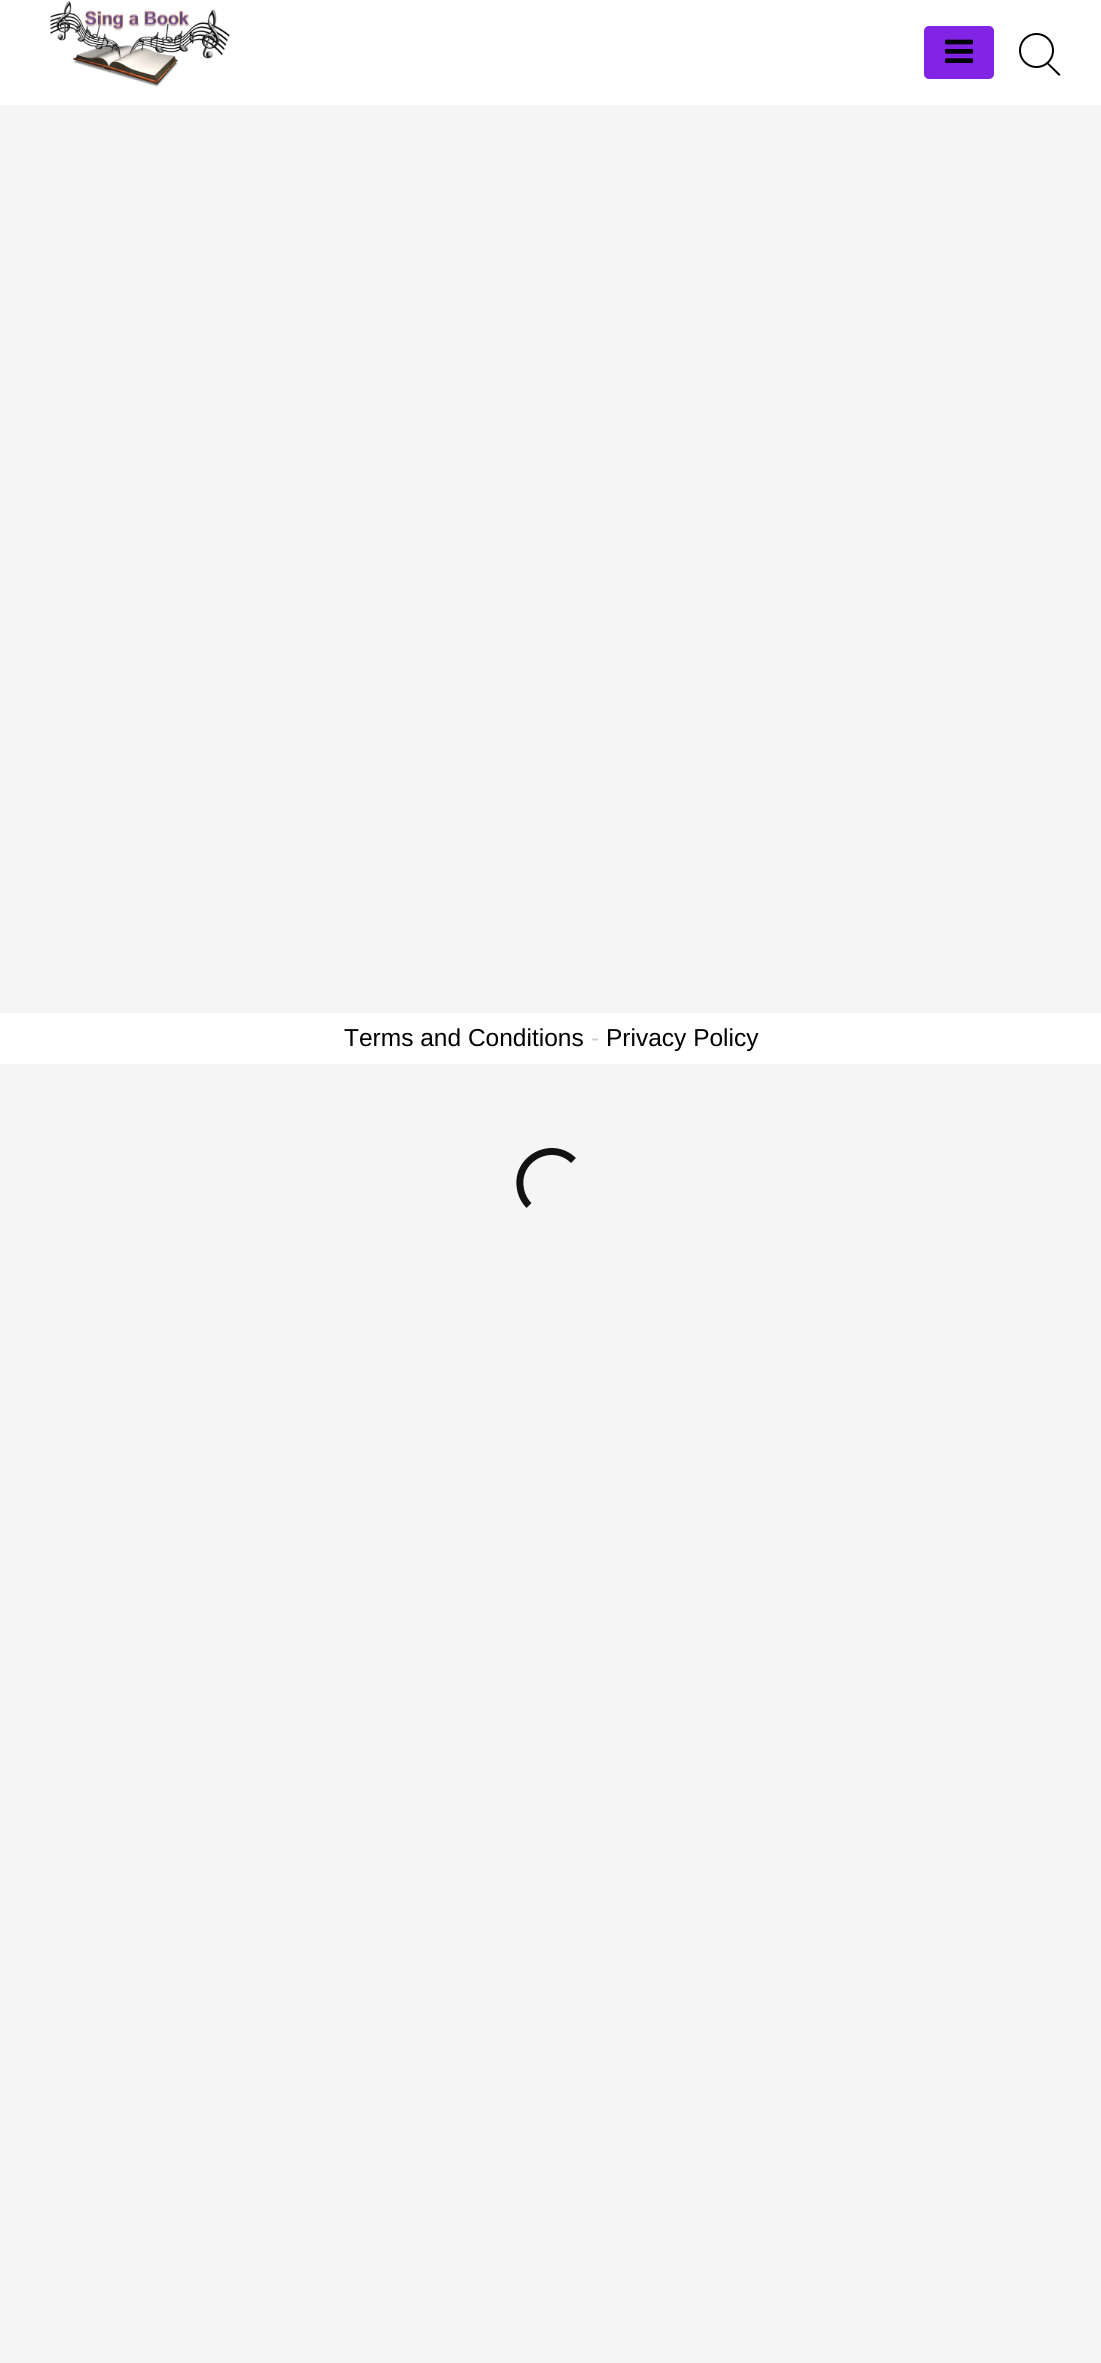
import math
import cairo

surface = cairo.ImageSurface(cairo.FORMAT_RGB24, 1101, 2363)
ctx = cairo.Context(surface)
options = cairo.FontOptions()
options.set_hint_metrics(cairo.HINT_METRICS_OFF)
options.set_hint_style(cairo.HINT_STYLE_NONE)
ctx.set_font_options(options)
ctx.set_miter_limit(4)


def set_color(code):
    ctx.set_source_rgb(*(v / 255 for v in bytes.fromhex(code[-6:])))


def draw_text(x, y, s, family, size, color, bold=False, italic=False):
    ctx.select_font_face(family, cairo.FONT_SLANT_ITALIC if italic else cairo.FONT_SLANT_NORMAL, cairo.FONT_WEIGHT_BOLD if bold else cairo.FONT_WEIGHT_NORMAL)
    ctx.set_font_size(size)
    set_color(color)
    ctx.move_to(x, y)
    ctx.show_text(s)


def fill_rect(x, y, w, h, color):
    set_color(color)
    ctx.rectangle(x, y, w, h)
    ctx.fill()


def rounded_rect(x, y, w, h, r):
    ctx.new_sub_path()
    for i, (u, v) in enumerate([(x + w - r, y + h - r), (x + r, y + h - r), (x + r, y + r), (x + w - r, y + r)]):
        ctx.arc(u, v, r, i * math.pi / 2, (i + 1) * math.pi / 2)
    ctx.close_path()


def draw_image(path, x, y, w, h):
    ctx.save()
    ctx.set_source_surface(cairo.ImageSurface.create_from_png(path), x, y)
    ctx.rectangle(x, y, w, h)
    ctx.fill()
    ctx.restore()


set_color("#f5f5f5")
ctx.paint()
fill_rect(0, 0, 1101, 105, "#ffffff")
draw_image("assets/img1.png", 50, 1, 180, 86)
set_color("#8224e3")
rounded_rect(924, 26, 70, 53, 5)
ctx.fill()
draw_image("assets/img2.png", 945, 39, 28, 24)
ctx.arc(1036.5, 50.5, 16.5, 0, 2 * math.pi)
set_color("#000000")
ctx.stroke()
ctx.new_path()
ctx.move_to(1048, 62.5)
ctx.line_to(1060.5, 74.5)
ctx.line_to(1059, 76)
ctx.line_to(1046.5, 63.5)
ctx.close_path()
ctx.fill()
fill_rect(0, 1013, 1101, 51, "#ffffff")
draw_text(344, 1046, "Terms and Conditions", "Liberation Sans", 24.5, "#000000")
draw_text(591, 1046, "-", "Liberation Sans", 24.5, "#cccccc")
draw_text(606, 1046, "Privacy Policy", "Liberation Sans", 24.5, "#000000")
ctx.new_path()
ctx.move_to(529, 1205.5)
ctx.curve_to(524.5, 1201, 521.5, 1195, 520.5, 1189)
ctx.curve_to(514.5, 1159, 551.5, 1139, 573.5, 1160.5)
set_color("#121212")
ctx.set_line_width(7)
ctx.stroke()
surface.write_to_png("output.png")
